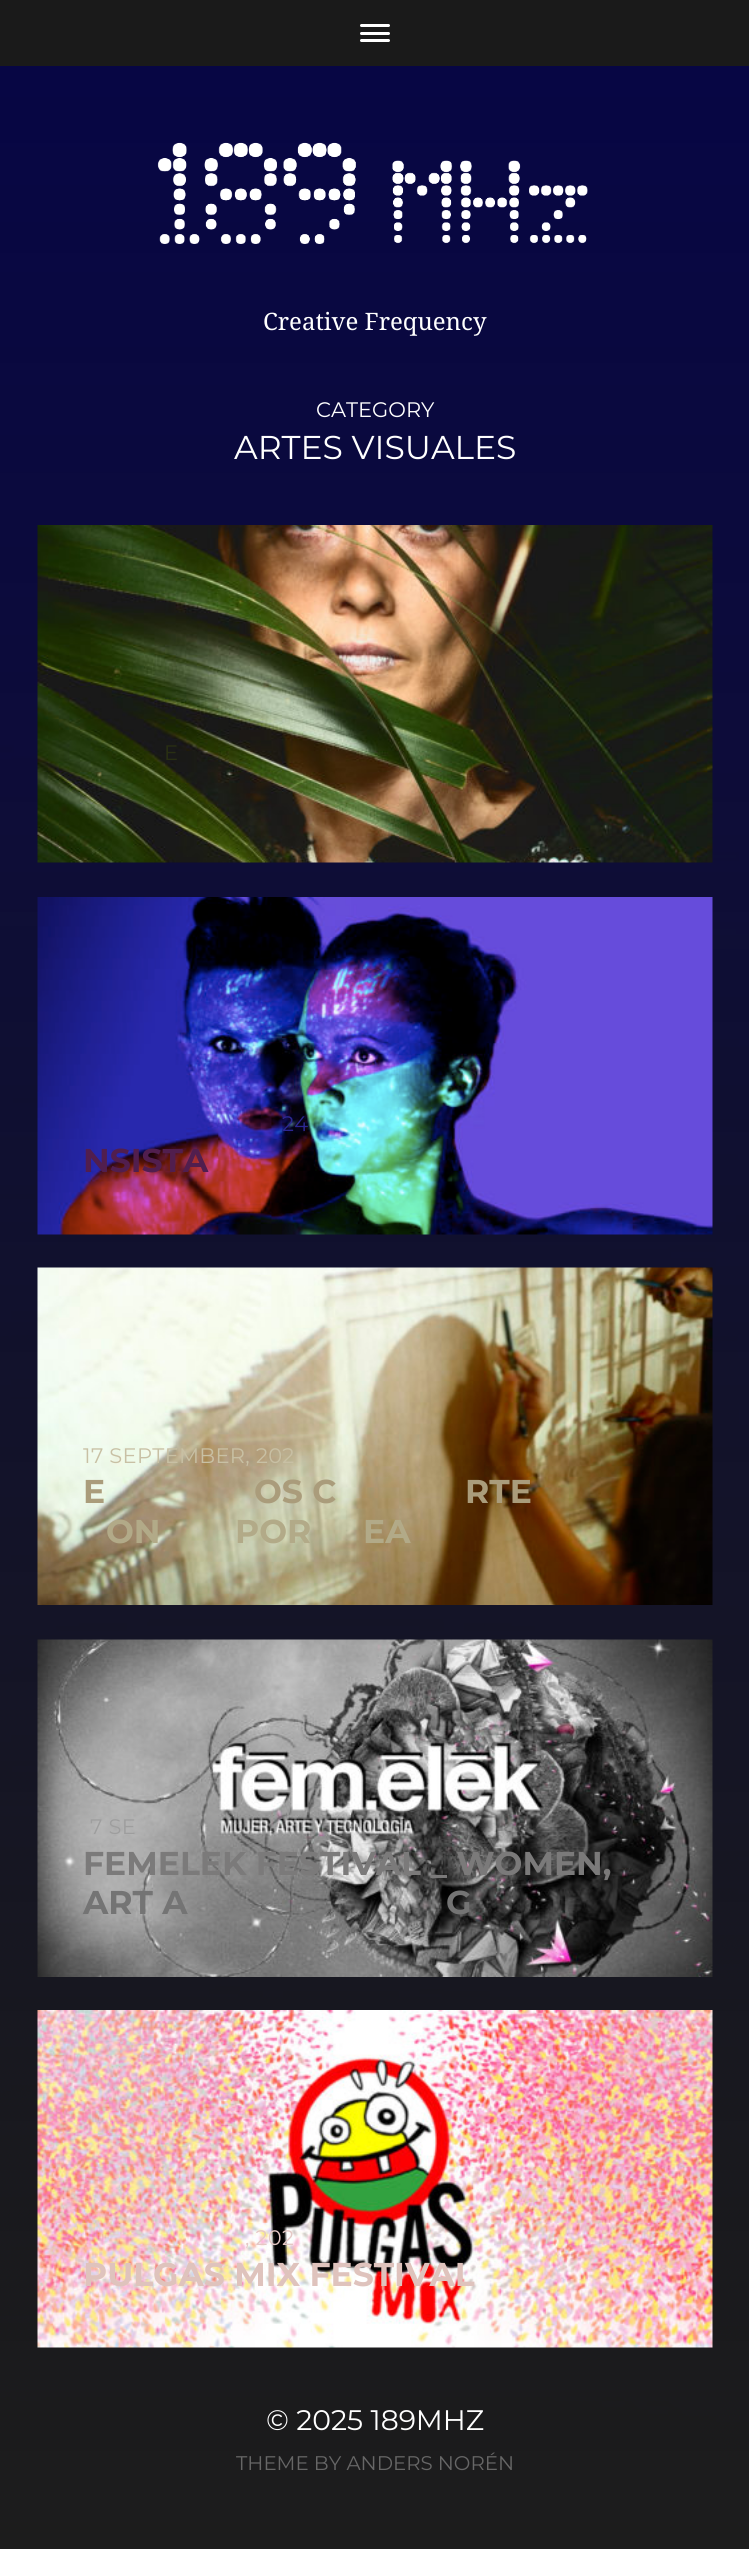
import math
import cairo

surface = cairo.ImageSurface(cairo.FORMAT_RGB24, 749, 2549)
ctx = cairo.Context(surface)
options = cairo.FontOptions()
options.set_hint_metrics(cairo.HINT_METRICS_OFF)
options.set_hint_style(cairo.HINT_STYLE_NONE)
ctx.set_font_options(options)
ctx.set_miter_limit(4)


def set_color(code):
    ctx.set_source_rgb(*(v / 255 for v in bytes.fromhex(code[-6:])))


def draw_text(x, y, s, family, size, color, bold=False, italic=False):
    ctx.select_font_face(family, cairo.FONT_SLANT_ITALIC if italic else cairo.FONT_SLANT_NORMAL, cairo.FONT_WEIGHT_BOLD if bold else cairo.FONT_WEIGHT_NORMAL)
    ctx.set_font_size(size)
    set_color(color)
    ctx.move_to(x, y)
    ctx.show_text(s)


def draw_spaced(x, y, s, letter, word):
    ctx.move_to(x, y)
    for ch in s:
        ctx.show_text(ch)
        ctx.rel_move_to(letter + word * (ch == ' '), 0)


def rounded_rect(x, y, w, h, r):
    ctx.new_sub_path()
    for i, (u, v) in enumerate([(x + w - r, y + h - r), (x + r, y + h - r), (x + r, y + r), (x + w - r, y + r)]):
        ctx.arc(u, v, r, i * math.pi / 2, (i + 1) * math.pi / 2)
    ctx.close_path()


def draw_image(path, x, y, w, h):
    ctx.save()
    ctx.set_source_surface(cairo.ImageSurface.create_from_png(path), x, y)
    ctx.rectangle(x, y, w, h)
    ctx.fill()
    ctx.restore()


set_color("#1a1a1a")
ctx.paint()
set_color("#ffffff")
rounded_rect(360, 24, 30, 3, 1.5)
ctx.fill()
rounded_rect(360, 32, 30, 3, 1.5)
ctx.fill()
rounded_rect(360, 39, 30, 3, 1.5)
ctx.fill()
draw_image("assets/img1.png", 0, 66, 749, 2483)
draw_image("assets/img2.png", 157, 142, 431, 102)
draw_text(263, 330, "Creative Frequency", "Droid Serif", 24, "#ffffff")
draw_text(316, 417, "CATEGORY", "Montserrat", 21, "#ffffff")
draw_text(234, 459, "ARTES VISUALES", "Montserrat", 33, "#ffffff")
draw_image("assets/img3.png", 37, 525, 676, 338)
ctx.set_font_size(21)
set_color("#292f12")
draw_spaced(164, 760, "E", 0.3, 0)
draw_image("assets/img4.png", 37, 897, 676, 338)
set_color("#2c2792")
draw_spaced(282, 1131, "24", 0.3, 0)
draw_text(83, 1172, "NSISTA", "Montserrat", 33, "#511e4e", bold=True)
draw_image("assets/img5.png", 37, 1267, 676, 338)
ctx.select_font_face("Montserrat")
ctx.set_font_size(21)
set_color("#c8c0a4")
draw_spaced(83, 1463, "17 SEPTEMBER, 202", 0.3, 0)
draw_text(83, 1503, "E", "Montserrat", 33, "#aa9c7b", bold=True)
draw_text(254, 1503, "OS C", "Montserrat", 33, "#aa9c7b", bold=True)
draw_text(465, 1503, "RTE", "Montserrat", 33, "#aa9c7b", bold=True)
draw_text(106, 1543, "ON", "Montserrat", 33, "#b2aa88", bold=True)
draw_text(235, 1543, "POR", "Montserrat", 33, "#b2aa88", bold=True)
draw_text(363, 1543, "EA", "Montserrat", 33, "#b2aa88", bold=True)
draw_image("assets/img6.png", 37, 1639, 676, 338)
ctx.select_font_face("Montserrat")
ctx.set_font_size(21)
set_color("#9e9e9e")
draw_spaced(90, 1834, "7 SE", 0.3, 0)
draw_text(83, 1875, "FEMELEK FESTIVAL _ WOMEN,", "Montserrat", 33, "#7b7a7a", bold=True)
draw_text(83, 1914, "ART A", "Montserrat", 33, "#747474", bold=True)
draw_text(446, 1914, "G", "Montserrat", 33, "#747474", bold=True)
draw_image("assets/img7.png", 37, 2010, 676, 338)
ctx.select_font_face("Montserrat")
ctx.set_font_size(21)
set_color("#e5c8c5")
draw_spaced(245, 2245, ", 202", 0.3, 0)
draw_text(83, 2286, "PULGAS MIX FESTIVAL", "Montserrat", 33, "#dfc3bd", bold=True)
draw_text(266, 2430, "© 2025 189MHZ", "Montserrat", 28.25, "#ffffff")
draw_text(236, 2470, "THEME BY ANDERS NORÉN", "Montserrat", 19.75, "#666666")
surface.write_to_png("output.png")
